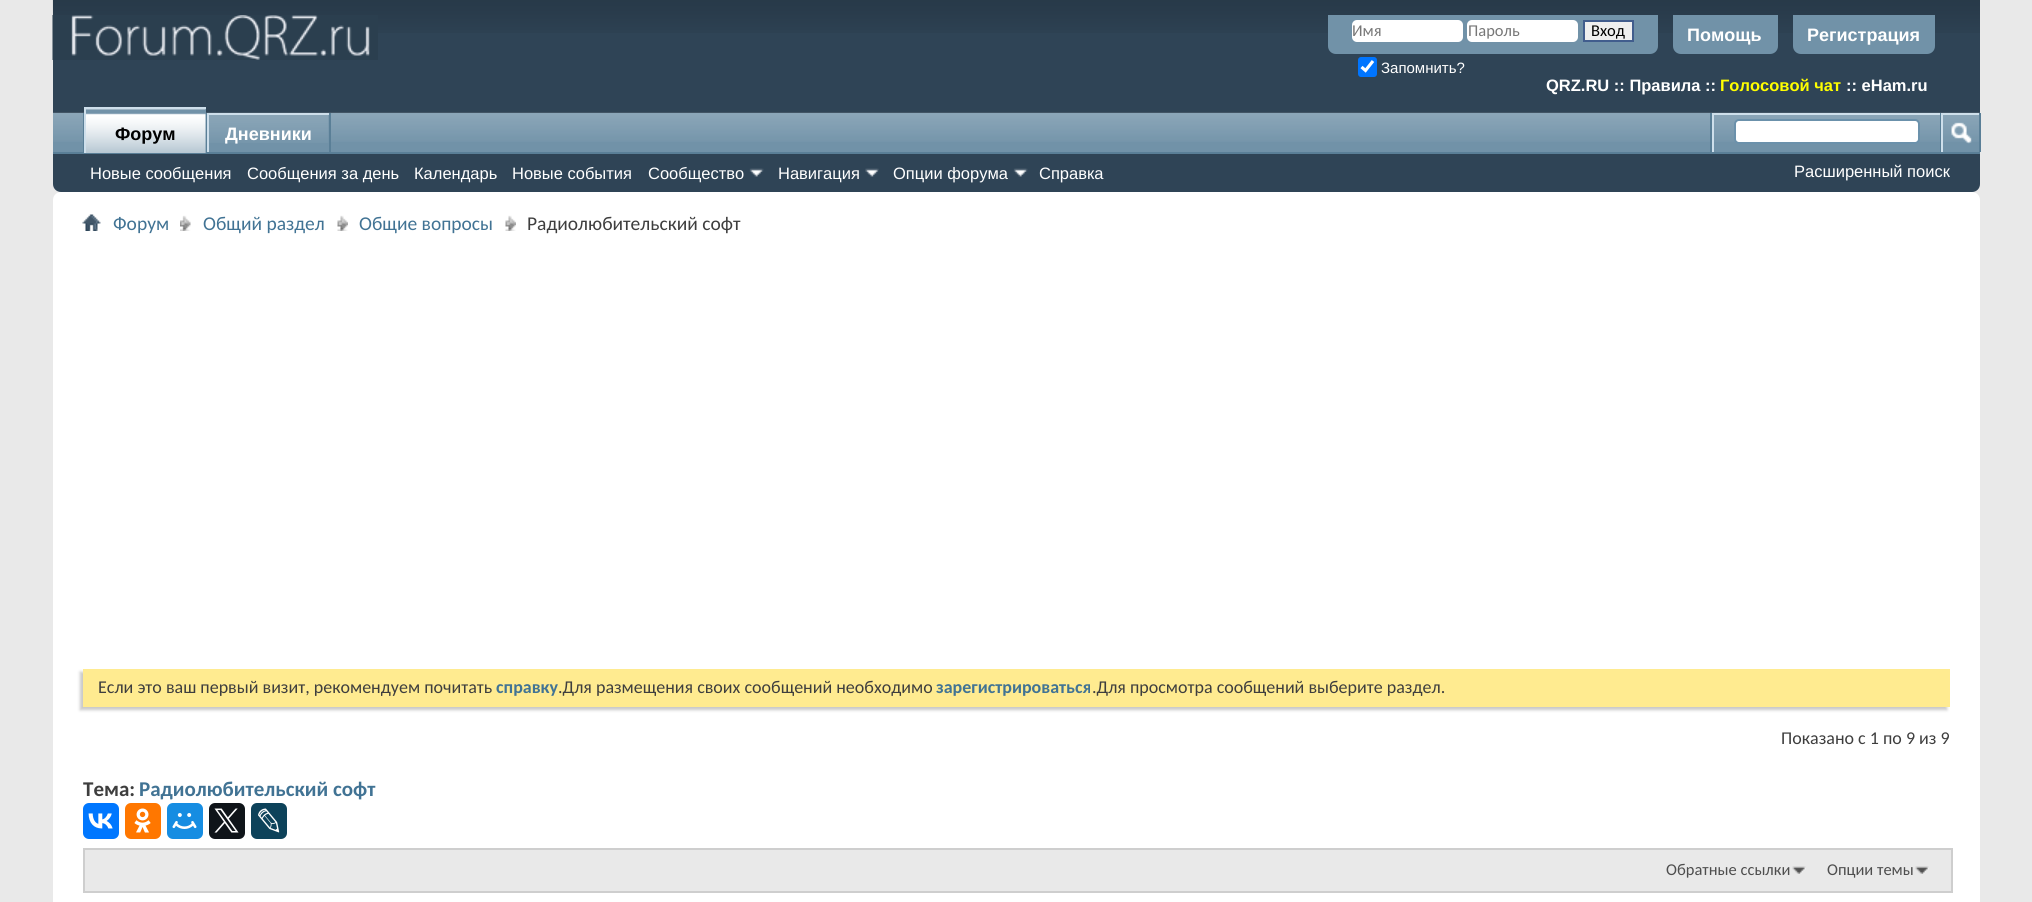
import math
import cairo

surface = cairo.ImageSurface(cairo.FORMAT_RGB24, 2032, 902)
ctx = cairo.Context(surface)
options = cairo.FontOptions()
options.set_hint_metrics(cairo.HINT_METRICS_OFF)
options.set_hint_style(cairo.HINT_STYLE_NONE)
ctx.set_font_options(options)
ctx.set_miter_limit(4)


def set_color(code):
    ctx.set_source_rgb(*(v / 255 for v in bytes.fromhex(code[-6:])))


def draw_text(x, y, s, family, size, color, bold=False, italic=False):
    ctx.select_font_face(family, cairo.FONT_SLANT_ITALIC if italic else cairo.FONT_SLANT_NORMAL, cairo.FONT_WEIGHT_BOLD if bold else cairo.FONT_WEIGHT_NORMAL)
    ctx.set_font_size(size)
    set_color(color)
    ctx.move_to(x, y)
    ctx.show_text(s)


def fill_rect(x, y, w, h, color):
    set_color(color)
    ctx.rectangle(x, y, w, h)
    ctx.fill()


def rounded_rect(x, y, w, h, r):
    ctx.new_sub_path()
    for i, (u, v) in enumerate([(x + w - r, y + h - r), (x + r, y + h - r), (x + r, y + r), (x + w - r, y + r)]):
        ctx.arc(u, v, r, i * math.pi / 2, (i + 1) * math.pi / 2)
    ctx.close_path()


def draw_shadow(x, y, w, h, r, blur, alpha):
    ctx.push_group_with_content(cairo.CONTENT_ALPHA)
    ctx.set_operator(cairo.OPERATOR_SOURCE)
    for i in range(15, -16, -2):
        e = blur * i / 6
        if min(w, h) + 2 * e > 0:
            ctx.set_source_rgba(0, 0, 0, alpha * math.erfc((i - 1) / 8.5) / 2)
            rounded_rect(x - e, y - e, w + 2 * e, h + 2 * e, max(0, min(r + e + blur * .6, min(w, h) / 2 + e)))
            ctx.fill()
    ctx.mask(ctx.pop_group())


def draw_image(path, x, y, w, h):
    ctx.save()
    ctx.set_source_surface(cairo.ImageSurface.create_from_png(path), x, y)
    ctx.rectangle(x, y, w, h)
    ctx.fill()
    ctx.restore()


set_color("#e9e9e9")
ctx.paint()
set_color("#2f4456")
ctx.new_path()
ctx.move_to(53, 0)
ctx.line_to(1980, 0)
ctx.line_to(1980, 184)
ctx.curve_to(1980, 188.5, 1976.5, 192, 1972, 192)
ctx.line_to(61, 192)
ctx.curve_to(56.5, 192, 53, 188.5, 53, 184)
ctx.close_path()
ctx.fill()
draw_image("assets/img1.png", 52, 0, 1928, 33)
draw_image("assets/img2.png", 52, 15, 326, 45)
set_color("#7192a8")
ctx.new_path()
ctx.move_to(1328, 15)
ctx.line_to(1658, 15)
ctx.line_to(1658, 46)
ctx.curve_to(1658, 50.5, 1654.5, 54, 1650, 54)
ctx.line_to(1336, 54)
ctx.curve_to(1331.5, 54, 1328, 50.5, 1328, 46)
ctx.close_path()
ctx.fill()
set_color("#ffffff")
rounded_rect(1352, 20, 111, 22, 5)
ctx.fill()
draw_text(1352, 36, "Имя", "Carlito", 16.5, "#777777")
set_color("#ffffff")
rounded_rect(1467, 20, 111, 22, 5)
ctx.fill()
draw_text(1468, 36, "Пароль", "Carlito", 16.5, "#777777")
set_color("#efefef")
ctx.rectangle(1584, 21, 49, 20)
ctx.fill_preserve()
set_color("#415d8d")
ctx.stroke()
draw_text(1591, 36, "Вход", "Carlito", 16.5, "#000000")
set_color("#0075ff")
rounded_rect(1358, 57, 19, 20, 3)
ctx.fill()
ctx.new_path()
ctx.move_to(1361.5, 67)
ctx.line_to(1365.5, 70.5)
ctx.line_to(1373, 61)
set_color("#ffffff")
ctx.set_line_width(3.1)
ctx.stroke()
draw_text(1381, 73, "Запомнить?", "Liberation Sans", 15, "#ffffff")
set_color("#7192a8")
ctx.new_path()
ctx.move_to(1673, 15)
ctx.line_to(1778, 15)
ctx.line_to(1778, 46)
ctx.curve_to(1778, 50.5, 1774.5, 54, 1770, 54)
ctx.line_to(1681, 54)
ctx.curve_to(1676.5, 54, 1673, 50.5, 1673, 46)
ctx.close_path()
ctx.fill()
draw_text(1687, 41, "Помощь", "Liberation Sans", 18, "#ffffff", bold=True)
set_color("#7192a8")
ctx.new_path()
ctx.move_to(1793, 15)
ctx.line_to(1935, 15)
ctx.line_to(1935, 46)
ctx.curve_to(1935, 50.5, 1931.5, 54, 1927, 54)
ctx.line_to(1801, 54)
ctx.curve_to(1796.5, 54, 1793, 50.5, 1793, 46)
ctx.close_path()
ctx.fill()
draw_text(1807, 41, "Регистрация", "Liberation Sans", 18, "#ffffff", bold=True)
draw_text(1546, 91, "QRZ.RU :: Правила ::", "Liberation Sans", 16.5, "#ffffff", bold=True)
draw_text(1720, 91, "Голосовой чат", "Liberation Sans", 16.5, "#ffff00", bold=True)
draw_text(1846, 91, ":: eHam.ru", "Liberation Sans", 16.5, "#ffffff", bold=True)
fill_rect(53, 113, 1926, 39, "#7192a8")
draw_image("assets/img3.png", 53, 112, 1927, 30)
fill_rect(206, 113, 1, 39, "#5a7f97")
fill_rect(83, 113, 1, 39, "#5a7f97")
fill_rect(329, 113, 2, 40, "#5a7f97")
fill_rect(207, 113, 122, 2, "#cedfeb")
fill_rect(207, 113, 2, 40, "#cedfeb")
fill_rect(53, 152, 1927, 2, "#5a7f97")
fill_rect(86, 109, 120, 44, "#7192a8")
draw_image("assets/img4.png", 86, 109, 120, 44)
fill_rect(84, 107, 122, 2, "#cedfeb")
fill_rect(84, 107, 2, 46, "#cedfeb")
draw_text(115, 140, "Форум", "Liberation Sans", 18, "#000000", bold=True)
fill_rect(209, 115, 120, 27, "#7192a8")
draw_image("assets/img5.png", 209, 115, 120, 28)
draw_text(225, 140, "Дневники", "Liberation Sans", 18, "#ffffff", bold=True)
draw_text(90, 179, "Новые сообщения", "Liberation Sans", 16.5, "#ffffff")
draw_text(247, 179, "Сообщения за день", "Liberation Sans", 16.5, "#ffffff")
draw_text(414, 179, "Календарь", "Liberation Sans", 16.5, "#ffffff")
draw_text(512, 179, "Новые события", "Liberation Sans", 16.5, "#ffffff")
draw_text(648, 179, "Сообщество", "Liberation Sans", 16.5, "#ffffff")
draw_image("assets/img6.png", 749, 168, 15, 9)
draw_text(778, 179, "Навигация", "Liberation Sans", 16.5, "#ffffff")
draw_image("assets/img7.png", 865, 168, 14, 9)
draw_text(893, 179, "Опции форума", "Liberation Sans", 16.5, "#ffffff")
draw_image("assets/img8.png", 1013, 168, 15, 9)
draw_text(1039, 179, "Справка", "Liberation Sans", 16.5, "#ffffff")
fill_rect(1710, 113, 2, 39, "#5a7f97")
fill_rect(1712, 113, 228, 2, "#cedfeb")
fill_rect(1712, 113, 2, 39, "#cedfeb")
set_color("#ffffff")
rounded_rect(1735, 120, 184, 23, 4)
ctx.fill_preserve()
set_color("#6b91ab")
ctx.set_line_width(2)
ctx.stroke()
fill_rect(1979, 113, 2, 39, "#5a7f97")
fill_rect(1940, 113, 1, 39, "#5a7f97")
fill_rect(1941, 113, 38, 2, "#cedfeb")
fill_rect(1941, 113, 2, 39, "#cedfeb")
draw_image("assets/img9.png", 1951, 122, 21, 22)
draw_text(1794, 177, "Расширенный поиск", "Liberation Sans", 16.5, "#ffffff")
rounded_rect(53, 192, 1927, 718, 8)
ctx.fill()
draw_image("assets/img10.png", 82, 214, 19, 17)
draw_image("assets/img11.png", 180, 215, 11, 16)
draw_text(113, 230, "Форум", "Carlito", 19.5, "#417394")
draw_image("assets/img12.png", 337, 215, 11, 16)
draw_text(203, 230, "Общий раздел", "Carlito", 19.5, "#417394")
draw_image("assets/img12.png", 505, 215, 11, 16)
draw_text(359, 230, "Общие вопросы", "Carlito", 19.5, "#417394")
draw_text(527, 230, "Радиолюбительский софт", "Carlito", 19.5, "#3e3e3e")
set_color("#c8c8c8")
draw_shadow(80, 672, 1867, 38, 0, 1.5, 1)
fill_rect(83, 669, 1867, 38, "#ffeb90")
draw_text(98, 693, "Если это ваш первый визит, рекомендуем почитать", "Carlito", 18, "#3e3e3e")
draw_text(496, 693, "справку", "Carlito", 18, "#417394", bold=True)
draw_text(558, 693, ".Для размещения своих сообщений необходимо", "Carlito", 18, "#3e3e3e")
draw_text(936, 693, "зарегистрироваться", "Carlito", 18, "#417394", bold=True)
draw_text(1092, 693, ".Для просмотра сообщений выберите раздел.", "Carlito", 18, "#3e3e3e")
draw_text(1781, 744, "Показано с 1 по 9 из 9", "Carlito", 18, "#3e3e3e")
draw_text(83, 796, "Тема:", "Carlito", 21, "#3e3e3e", bold=True)
draw_text(139, 796, "Радиолюбительский софт", "Carlito", 21, "#417394", bold=True)
set_color("#0077ff")
rounded_rect(83, 803, 36, 36, 6)
ctx.fill()
draw_image("assets/img13.png", 88, 813, 25, 16)
set_color("#ff7700")
rounded_rect(125, 803, 36, 36, 6)
ctx.fill()
draw_image("assets/img14.png", 134, 808, 17, 25)
set_color("#168de2")
rounded_rect(167, 803, 36, 36, 6)
ctx.fill()
draw_image("assets/img15.png", 172, 813, 25, 16)
set_color("#0f1419")
rounded_rect(209, 803, 36, 36, 6)
ctx.fill()
draw_image("assets/img16.png", 214, 808, 25, 25)
set_color("#0d425a")
rounded_rect(251, 803, 36, 36, 6)
ctx.fill()
draw_image("assets/img17.png", 258, 808, 22, 25)
set_color("#e9e9e9")
ctx.rectangle(84, 849, 1868, 43)
ctx.fill_preserve()
set_color("#cecece")
ctx.stroke()
draw_image("assets/img18.png", 1792, 866, 14, 8)
draw_text(1666, 875, "Обратные ссылки", "Carlito", 16.5, "#4e4e4e")
draw_image("assets/img19.png", 1915, 866, 14, 8)
draw_text(1827, 875, "Опции темы", "Carlito", 16.5, "#4e4e4e")
surface.write_to_png("output.png")
